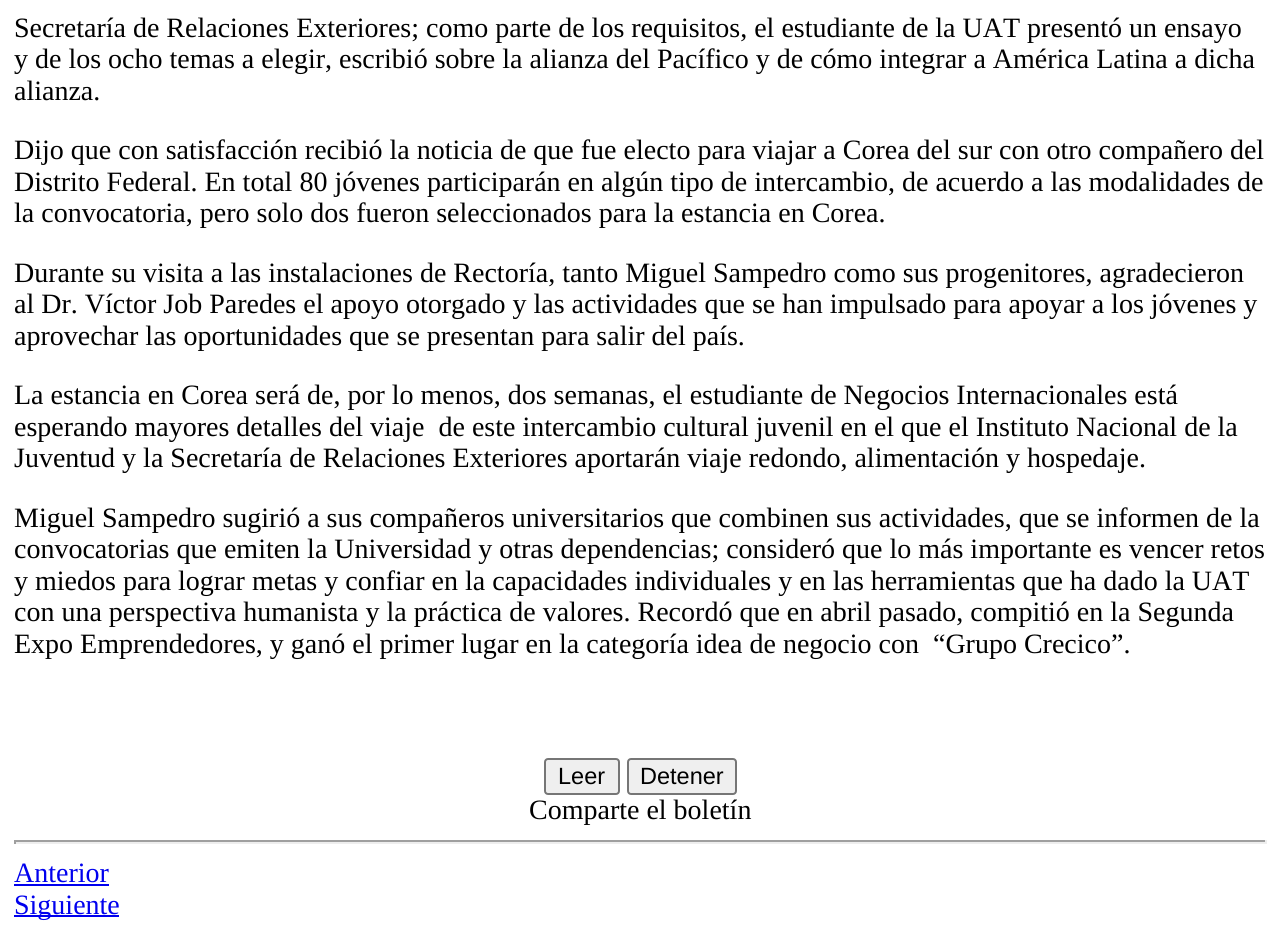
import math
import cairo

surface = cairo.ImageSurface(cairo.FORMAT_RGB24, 1280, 933)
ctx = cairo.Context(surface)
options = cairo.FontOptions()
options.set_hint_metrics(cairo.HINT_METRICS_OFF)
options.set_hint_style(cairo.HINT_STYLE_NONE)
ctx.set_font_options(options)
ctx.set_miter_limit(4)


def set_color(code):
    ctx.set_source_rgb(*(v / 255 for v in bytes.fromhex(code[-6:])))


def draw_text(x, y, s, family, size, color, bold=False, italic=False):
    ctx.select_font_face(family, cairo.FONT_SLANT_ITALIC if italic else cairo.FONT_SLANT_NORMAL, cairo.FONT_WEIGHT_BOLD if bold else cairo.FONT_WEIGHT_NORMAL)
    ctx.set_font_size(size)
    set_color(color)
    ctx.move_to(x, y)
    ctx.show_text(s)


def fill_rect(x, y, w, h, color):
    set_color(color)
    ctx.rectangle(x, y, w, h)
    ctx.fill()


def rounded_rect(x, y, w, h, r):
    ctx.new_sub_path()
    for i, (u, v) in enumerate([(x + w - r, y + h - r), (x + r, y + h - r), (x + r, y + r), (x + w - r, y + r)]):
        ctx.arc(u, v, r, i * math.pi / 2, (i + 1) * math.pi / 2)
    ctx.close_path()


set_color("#ffffff")
ctx.paint()
draw_text(14, 37, "Secretaría de Relaciones Exteriores; como parte de los requisitos, el estudiante de la UAT presentó un ensayo", "Liberation Serif", 28, "#000000")
draw_text(14, 68, "y de los ocho temas a elegir, escribió sobre la alianza del Pacífico y de cómo integrar a América Latina a dicha", "Liberation Serif", 28, "#000000")
draw_text(14, 100, "alianza.", "Liberation Serif", 28, "#000000")
draw_text(14, 159, "Dijo que con satisfacción recibió la noticia de que fue electo para viajar a Corea del sur con otro compañero del", "Liberation Serif", 28, "#000000")
draw_text(14, 191, "Distrito Federal. En total 80 jóvenes participarán en algún tipo de intercambio, de acuerdo a las modalidades de", "Liberation Serif", 28, "#000000")
draw_text(14, 222, "la convocatoria, pero solo dos fueron seleccionados para la estancia en Corea.", "Liberation Serif", 28, "#000000")
draw_text(14, 282, "Durante su visita a las instalaciones de Rectoría, tanto Miguel Sampedro como sus progenitores, agradecieron", "Liberation Serif", 28, "#000000")
draw_text(14, 313, "al Dr. Víctor Job Paredes el apoyo otorgado y las actividades que se han impulsado para apoyar a los jóvenes y", "Liberation Serif", 28, "#000000")
draw_text(14, 345, "aprovechar las oportunidades que se presentan para salir del país.", "Liberation Serif", 28, "#000000")
draw_text(14, 404, "La estancia en Corea será de, por lo menos, dos semanas, el estudiante de Negocios Internacionales está", "Liberation Serif", 28, "#000000")
draw_text(14, 436, "esperando mayores detalles del viaje  de este intercambio cultural juvenil en el que el Instituto Nacional de la", "Liberation Serif", 28, "#000000")
draw_text(14, 467, "Juventud y la Secretaría de Relaciones Exteriores aportarán viaje redondo, alimentación y hospedaje.", "Liberation Serif", 28, "#000000")
draw_text(14, 527, "Miguel Sampedro sugirió a sus compañeros universitarios que combinen sus actividades, que se informen de la", "Liberation Serif", 28, "#000000")
draw_text(14, 558, "convocatorias que emiten la Universidad y otras dependencias; consideró que lo más importante es vencer retos", "Liberation Serif", 28, "#000000")
draw_text(14, 590, "y miedos para lograr metas y confiar en la capacidades individuales y en las herramientas que ha dado la UAT", "Liberation Serif", 28, "#000000")
draw_text(14, 621, "con una perspectiva humanista y la práctica de valores. Recordó que en abril pasado, compitió en la Segunda", "Liberation Serif", 28, "#000000")
draw_text(14, 653, "Expo Emprendedores, y ganó el primer lugar en la categoría idea de negocio con  “Grupo Crecico”.", "Liberation Serif", 28, "#000000")
set_color("#efefef")
rounded_rect(545, 759, 74, 35, 3)
ctx.fill_preserve()
set_color("#767676")
ctx.stroke()
draw_text(558, 784, "Leer", "Liberation Sans", 23.5, "#000000")
set_color("#efefef")
rounded_rect(628, 759, 108, 35, 3)
ctx.fill_preserve()
set_color("#767676")
ctx.stroke()
draw_text(640, 784, "Detener", "Liberation Sans", 23.5, "#000000")
draw_text(529, 819, "Comparte el boletín", "Liberation Serif", 28, "#000000")
fill_rect(14, 840, 1253, 2, "#9f9f9f")
fill_rect(1265, 840, 2, 4, "#eeeeee")
fill_rect(14, 842, 1253, 2, "#eeeeee")
fill_rect(14, 840, 2, 4, "#9f9f9f")
draw_text(14, 882, "Anterior", "Liberation Serif", 28, "#0000ee")
fill_rect(14, 884, 95, 2, "#0000ee")
fill_rect(14, 915, 105, 2, "#0000ee")
draw_text(14, 914, "Siguiente", "Liberation Serif", 28, "#0000ee")
surface.write_to_png("output.png")
